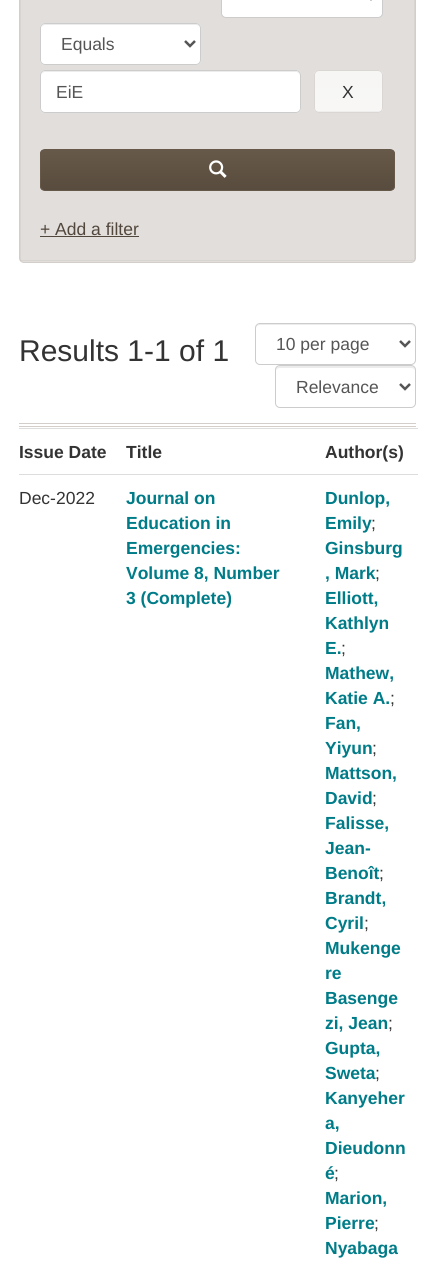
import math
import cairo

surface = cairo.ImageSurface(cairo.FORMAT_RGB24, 434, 1268)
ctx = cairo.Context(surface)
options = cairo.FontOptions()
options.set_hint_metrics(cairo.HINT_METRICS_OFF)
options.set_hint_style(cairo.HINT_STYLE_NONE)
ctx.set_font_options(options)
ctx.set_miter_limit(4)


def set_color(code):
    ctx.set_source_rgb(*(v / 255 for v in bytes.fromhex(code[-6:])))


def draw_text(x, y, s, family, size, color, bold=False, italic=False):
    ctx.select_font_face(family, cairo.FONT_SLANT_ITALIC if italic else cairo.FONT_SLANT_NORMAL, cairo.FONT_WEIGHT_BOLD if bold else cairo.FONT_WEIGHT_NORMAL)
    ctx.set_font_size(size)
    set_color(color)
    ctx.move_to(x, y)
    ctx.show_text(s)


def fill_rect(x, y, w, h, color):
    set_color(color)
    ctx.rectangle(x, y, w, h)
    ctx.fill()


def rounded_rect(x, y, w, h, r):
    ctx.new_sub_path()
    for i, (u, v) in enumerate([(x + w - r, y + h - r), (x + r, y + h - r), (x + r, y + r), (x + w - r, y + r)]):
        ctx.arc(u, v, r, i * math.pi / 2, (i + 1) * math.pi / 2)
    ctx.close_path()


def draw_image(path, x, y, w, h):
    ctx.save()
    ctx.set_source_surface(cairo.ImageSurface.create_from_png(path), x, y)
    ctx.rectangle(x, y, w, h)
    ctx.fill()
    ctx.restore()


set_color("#ffffff")
ctx.paint()
set_color("#e1dedb")
rounded_rect(19.5, -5.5, 396, 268, 4.5)
ctx.fill_preserve()
set_color("#d3ceca")
ctx.set_line_width(1)
ctx.stroke()
ctx.set_source_rgba(0.71, 0.678, 0.651, 0.2)
ctx.new_path()
ctx.move_to(415, -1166)
ctx.line_to(415, 261)
ctx.line_to(414, 260)
ctx.line_to(414, -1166)
ctx.close_path()
ctx.fill()
ctx.new_path()
ctx.move_to(415, 261)
ctx.line_to(20, 261)
ctx.line_to(21, 260)
ctx.line_to(414, 260)
ctx.close_path()
ctx.fill()
ctx.new_path()
ctx.move_to(20, 261)
ctx.line_to(20, -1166)
ctx.line_to(21, -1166)
ctx.line_to(21, 260)
ctx.close_path()
ctx.fill()
set_color("#ffffff")
rounded_rect(221.5, -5.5, 161, 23, 4.5)
ctx.fill_preserve()
set_color("#cccccc")
ctx.stroke()
ctx.new_path()
ctx.move_to(366, -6)
ctx.line_to(371, -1)
ctx.line_to(376, -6)
set_color("#555555")
ctx.set_line_width(2.5)
ctx.stroke()
set_color("#ffffff")
rounded_rect(40, 23, 161, 42, 5)
ctx.fill()
set_color("#ececec")
ctx.new_path()
ctx.move_to(45, 25)
ctx.line_to(196, 25)
ctx.curve_to(198, 25, 200, 27, 200, 29)
ctx.curve_to(200, 27, 199, 25, 197, 24)
ctx.line_to(44, 24)
ctx.curve_to(42, 25, 41, 27, 41, 29)
ctx.curve_to(41, 27, 43, 25, 45, 25)
ctx.close_path()
ctx.fill()
rounded_rect(40.5, 23.5, 160, 41, 4.5)
set_color("#cccccc")
ctx.set_line_width(1)
ctx.stroke()
ctx.new_path()
ctx.move_to(185, 41)
ctx.line_to(190, 46)
ctx.line_to(195, 41)
set_color("#555555")
ctx.set_line_width(2.5)
ctx.stroke()
draw_text(61, 50, "Equals", "Liberation Sans", 17.5, "#555555")
set_color("#ffffff")
rounded_rect(40, 70, 261, 43, 5)
ctx.fill()
set_color("#ececec")
ctx.new_path()
ctx.move_to(45, 72)
ctx.line_to(296, 72)
ctx.curve_to(298, 72, 300, 74, 300, 76)
ctx.line_to(300, 75)
ctx.curve_to(300, 73, 298, 71, 296, 71)
ctx.line_to(45, 71)
ctx.curve_to(43, 71, 41, 73, 41, 75)
ctx.line_to(41, 76)
ctx.curve_to(41, 74, 43, 72, 45, 72)
ctx.close_path()
ctx.fill()
rounded_rect(40.5, 70.5, 260, 42, 4.5)
set_color("#cccccc")
ctx.set_line_width(1)
ctx.stroke()
draw_text(56, 98, "EiE", "Liberation Sans", 17.5, "#555555")
set_color("#eeeeee")
rounded_rect(314, 70, 69, 43, 5)
ctx.fill()
ctx.save()
rounded_rect(314, 70, 69, 43, 5)
ctx.clip()
gradient = cairo.LinearGradient(348, 71, 348, 111)
gradient.add_color_stop_rgba(0, 0.965, 0.965, 0.961, 1)
gradient.add_color_stop_rgba(1, 0.973, 0.969, 0.965, 1)
ctx.set_source(gradient)
ctx.rectangle(314, 71, 69, 40)
ctx.fill()
ctx.restore()
rounded_rect(314.5, 70.5, 68, 42, 4.5)
set_color("#dad6d3")
ctx.stroke()
draw_text(342, 98, "X", "Liberation Sans", 17.5, "#333333")
ctx.save()
rounded_rect(40, 149, 355, 42, 5)
ctx.clip()
gradient = cairo.LinearGradient(218, 150, 218, 190)
gradient.add_color_stop_rgba(0, 0.404, 0.349, 0.286, 1)
gradient.add_color_stop_rgba(1, 0.345, 0.298, 0.243, 1)
ctx.set_source(gradient)
ctx.rectangle(40, 150, 355, 40)
ctx.fill()
ctx.restore()
rounded_rect(40.5, 149.5, 354, 41, 4.5)
set_color("#675949")
ctx.stroke()
draw_image("assets/img1.png", 209, 160, 18, 18)
draw_text(40, 235, "+ Add a filter", "Liberation Sans", 17.5, "#52473c")
fill_rect(40, 236, 99, 1, "#52473c")
draw_text(19, 361, "Results 1-1 of 1", "Liberation Sans", 30, "#333333")
set_color("#ececec")
ctx.new_path()
ctx.move_to(260, 325)
ctx.line_to(411, 325)
ctx.curve_to(413, 325, 415, 327, 415, 329)
ctx.curve_to(415, 327, 414, 325, 412, 324)
ctx.line_to(259, 324)
ctx.curve_to(257, 325, 256, 327, 256, 329)
ctx.curve_to(256, 327, 258, 325, 260, 325)
ctx.close_path()
ctx.fill()
rounded_rect(255.5, 323.5, 160, 41, 4.5)
set_color("#cccccc")
ctx.stroke()
ctx.new_path()
ctx.move_to(400, 341)
ctx.line_to(405, 346)
ctx.line_to(410, 341)
set_color("#555555")
ctx.set_line_width(2.5)
ctx.stroke()
draw_text(276, 350, "10 per page", "Liberation Sans", 17.5, "#555555")
set_color("#ececec")
ctx.new_path()
ctx.move_to(280, 368)
ctx.line_to(411, 368)
ctx.curve_to(413, 368, 415, 369, 415, 371)
ctx.line_to(415, 370)
ctx.curve_to(415, 368, 413, 366, 411, 366)
ctx.line_to(280, 366)
ctx.curve_to(278, 366, 276, 368, 276, 370)
ctx.line_to(276, 371)
ctx.curve_to(276, 369, 278, 368, 280, 368)
ctx.close_path()
ctx.fill()
rounded_rect(275.5, 365.5, 140, 42, 4.5)
set_color("#cccccc")
ctx.set_line_width(1)
ctx.stroke()
ctx.new_path()
ctx.move_to(400, 384)
ctx.line_to(405, 389)
ctx.line_to(410, 384)
set_color("#555555")
ctx.set_line_width(2.5)
ctx.stroke()
draw_text(296, 393, "Relevance", "Liberation Sans", 17.5, "#555555")
fill_rect(19, 423, 397, 1, "#d3ceca")
fill_rect(19, 426, 397, 1, "#d3ceca")
draw_text(19, 458, "Issue Date", "Liberation Sans", 17.5, "#333333", bold=True)
draw_text(126, 458, "Title", "Liberation Sans", 17.5, "#333333", bold=True)
fill_rect(19, 428, 399, 1, "#dddddd")
draw_text(325, 458, "Author(s)", "Liberation Sans", 17.5, "#333333", bold=True)
draw_text(19, 504, "Dec-2022", "Liberation Sans", 17.5, "#333333")
draw_text(126, 504, "Journal on", "Liberation Sans", 17.5, "#007c88", bold=True)
draw_text(126, 529, "Education in", "Liberation Sans", 17.5, "#007c88", bold=True)
draw_text(126, 554, "Emergencies:", "Liberation Sans", 17.5, "#007c88", bold=True)
draw_text(126, 579, "Volume 8, Number", "Liberation Sans", 17.5, "#007c88", bold=True)
draw_text(126, 604, "3 (Complete)", "Liberation Sans", 17.5, "#007c88", bold=True)
fill_rect(19, 474, 399, 1, "#dddddd")
draw_text(325, 504, "Dunlop,", "Liberation Sans", 17.5, "#007c88", bold=True)
draw_text(325, 529, "Emily", "Liberation Sans", 17.5, "#007c88", bold=True)
draw_text(371, 529, ";", "Liberation Sans", 17.5, "#333333")
draw_text(325, 554, "Ginsburg", "Liberation Sans", 17.5, "#007c88", bold=True)
draw_text(325, 579, ", Mark", "Liberation Sans", 17.5, "#007c88", bold=True)
draw_text(375, 579, ";", "Liberation Sans", 17.5, "#333333")
draw_text(325, 604, "Elliott,", "Liberation Sans", 17.5, "#007c88", bold=True)
draw_text(325, 629, "Kathlyn", "Liberation Sans", 17.5, "#007c88", bold=True)
draw_text(325, 654, "E.", "Liberation Sans", 17.5, "#007c88", bold=True)
draw_text(341, 654, ";", "Liberation Sans", 17.5, "#333333")
draw_text(325, 679, "Mathew,", "Liberation Sans", 17.5, "#007c88", bold=True)
draw_text(325, 704, "Katie A.", "Liberation Sans", 17.5, "#007c88", bold=True)
draw_text(390, 704, ";", "Liberation Sans", 17.5, "#333333")
draw_text(325, 729, "Fan,", "Liberation Sans", 17.5, "#007c88", bold=True)
draw_text(325, 754, "Yiyun", "Liberation Sans", 17.5, "#007c88", bold=True)
draw_text(372, 754, ";", "Liberation Sans", 17.5, "#333333")
draw_text(325, 779, "Mattson,", "Liberation Sans", 17.5, "#007c88", bold=True)
draw_text(325, 804, "David", "Liberation Sans", 17.5, "#007c88", bold=True)
draw_text(372, 804, ";", "Liberation Sans", 17.5, "#333333")
draw_text(325, 829, "Falisse,", "Liberation Sans", 17.5, "#007c88", bold=True)
draw_text(325, 854, "Jean-", "Liberation Sans", 17.5, "#007c88", bold=True)
draw_text(325, 879, "Benoît", "Liberation Sans", 17.5, "#007c88", bold=True)
draw_text(379, 879, ";", "Liberation Sans", 17.5, "#333333")
draw_text(325, 904, "Brandt,", "Liberation Sans", 17.5, "#007c88", bold=True)
draw_text(325, 929, "Cyril", "Liberation Sans", 17.5, "#007c88", bold=True)
draw_text(364, 929, ";", "Liberation Sans", 17.5, "#333333")
draw_text(325, 954, "Mukenge", "Liberation Sans", 17.5, "#007c88", bold=True)
draw_text(325, 979, "re", "Liberation Sans", 17.5, "#007c88", bold=True)
draw_text(325, 1004, "Basenge", "Liberation Sans", 17.5, "#007c88", bold=True)
draw_text(325, 1029, "zi, Jean", "Liberation Sans", 17.5, "#007c88", bold=True)
draw_text(388, 1029, ";", "Liberation Sans", 17.5, "#333333")
draw_text(325, 1054, "Gupta,", "Liberation Sans", 17.5, "#007c88", bold=True)
draw_text(325, 1079, "Sweta", "Liberation Sans", 17.5, "#007c88", bold=True)
draw_text(375, 1079, ";", "Liberation Sans", 17.5, "#333333")
draw_text(325, 1104, "Kanyeher", "Liberation Sans", 17.5, "#007c88", bold=True)
draw_text(325, 1129, "a,", "Liberation Sans", 17.5, "#007c88", bold=True)
draw_text(325, 1154, "Dieudonn", "Liberation Sans", 17.5, "#007c88", bold=True)
draw_text(325, 1179, "é", "Liberation Sans", 17.5, "#007c88", bold=True)
draw_text(334, 1179, ";", "Liberation Sans", 17.5, "#333333")
draw_text(325, 1204, "Marion,", "Liberation Sans", 17.5, "#007c88", bold=True)
draw_text(325, 1229, "Pierre", "Liberation Sans", 17.5, "#007c88", bold=True)
draw_text(374, 1229, ";", "Liberation Sans", 17.5, "#333333")
draw_text(325, 1254, "Nyabaga", "Liberation Sans", 17.5, "#007c88", bold=True)
surface.write_to_png("output.png")
